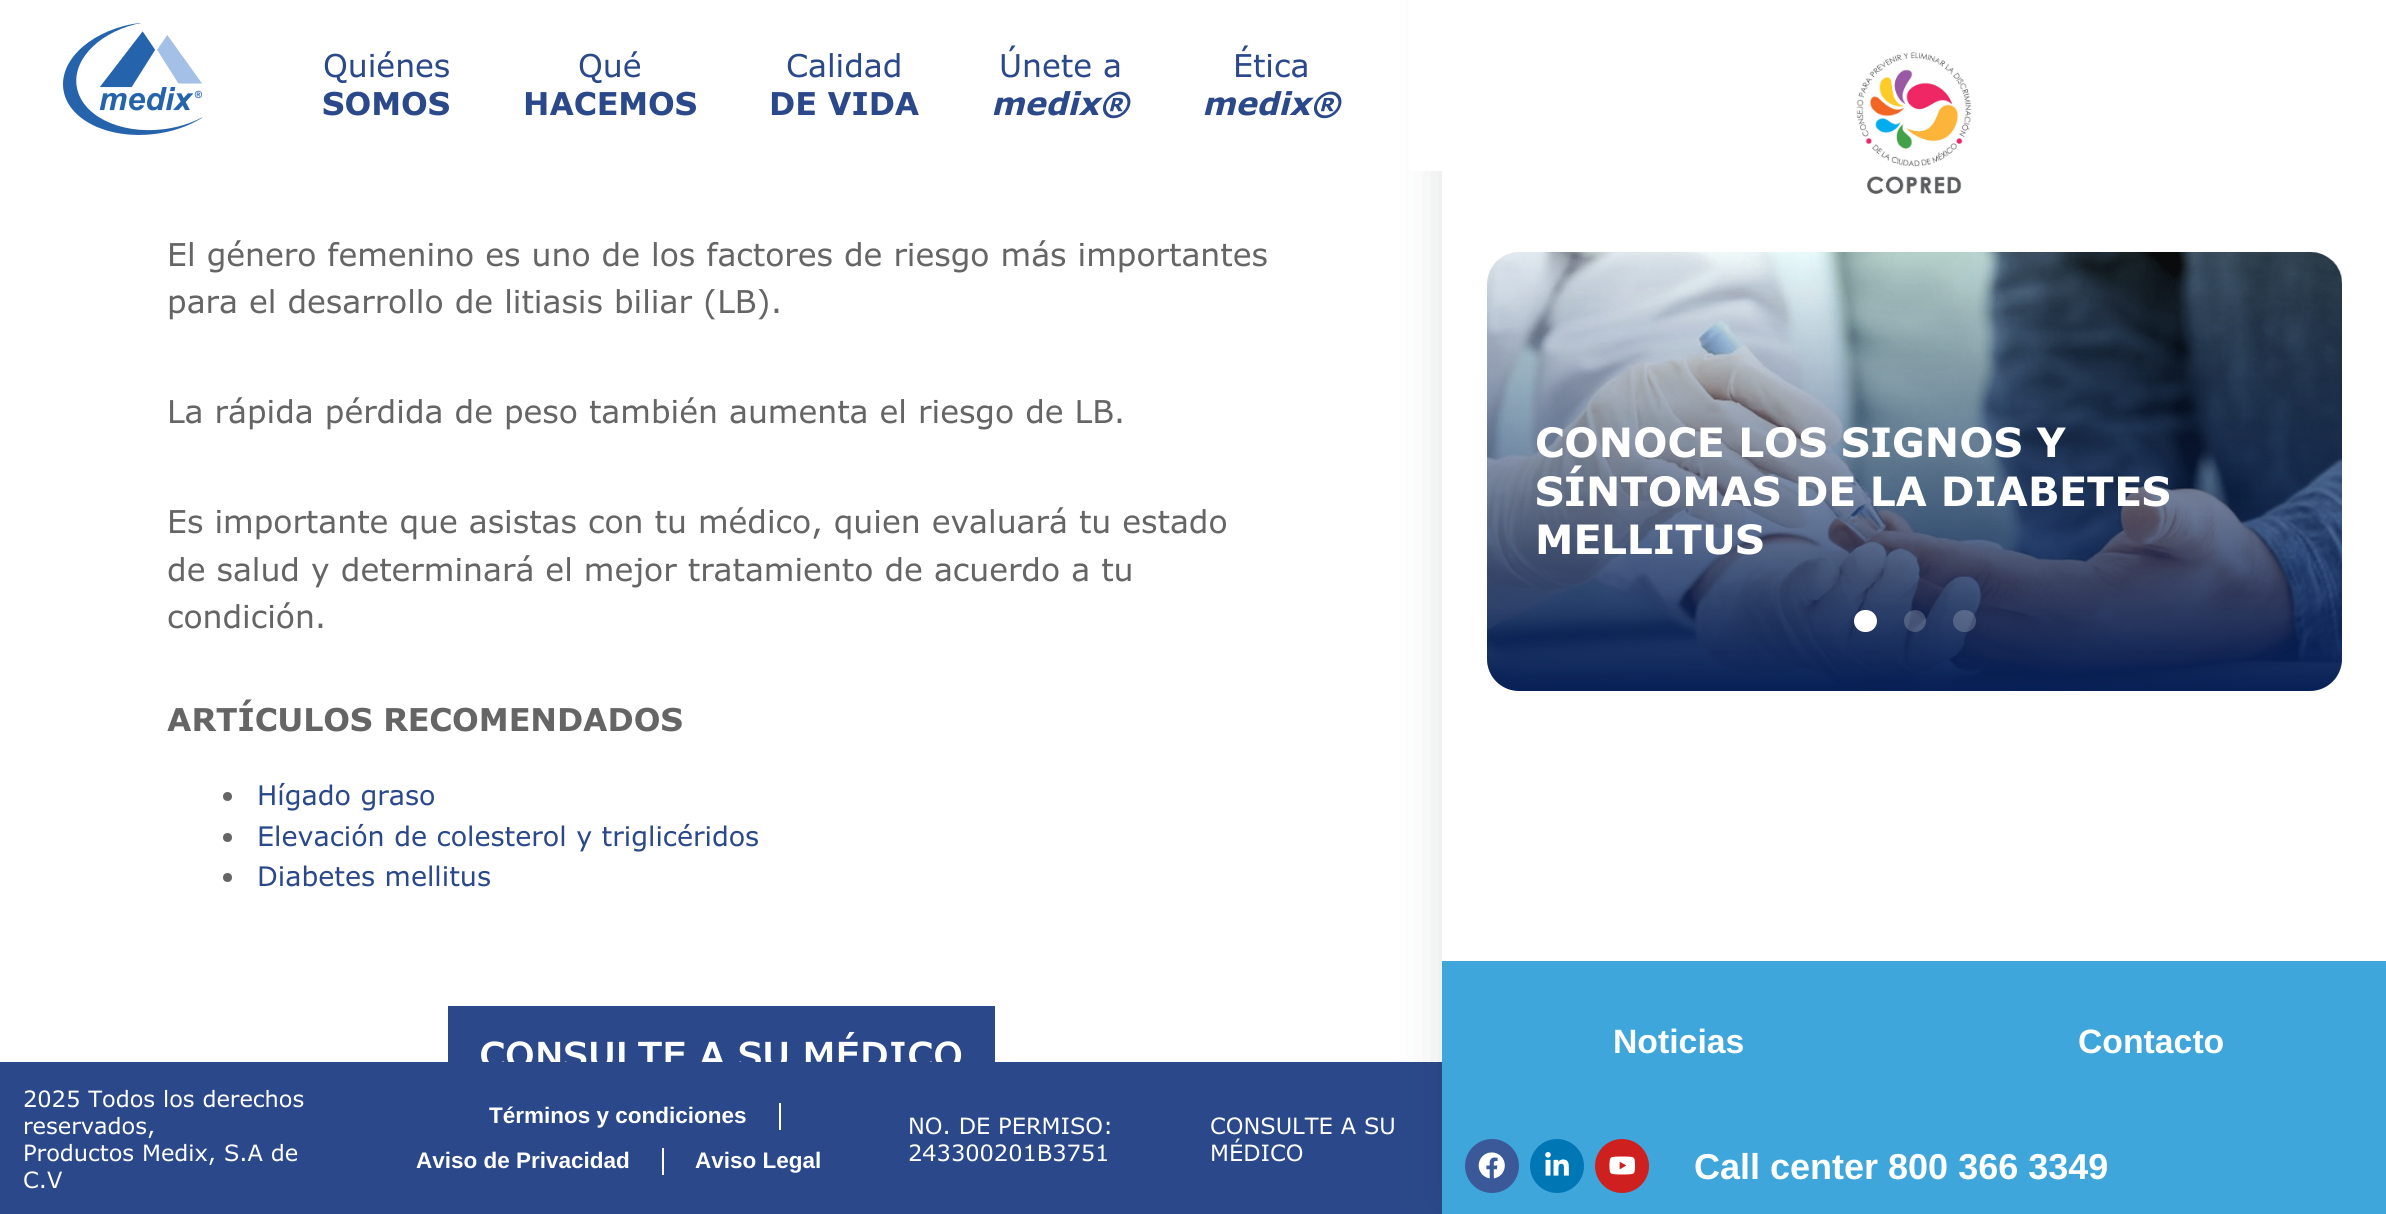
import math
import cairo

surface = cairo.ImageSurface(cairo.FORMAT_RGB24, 2386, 1214)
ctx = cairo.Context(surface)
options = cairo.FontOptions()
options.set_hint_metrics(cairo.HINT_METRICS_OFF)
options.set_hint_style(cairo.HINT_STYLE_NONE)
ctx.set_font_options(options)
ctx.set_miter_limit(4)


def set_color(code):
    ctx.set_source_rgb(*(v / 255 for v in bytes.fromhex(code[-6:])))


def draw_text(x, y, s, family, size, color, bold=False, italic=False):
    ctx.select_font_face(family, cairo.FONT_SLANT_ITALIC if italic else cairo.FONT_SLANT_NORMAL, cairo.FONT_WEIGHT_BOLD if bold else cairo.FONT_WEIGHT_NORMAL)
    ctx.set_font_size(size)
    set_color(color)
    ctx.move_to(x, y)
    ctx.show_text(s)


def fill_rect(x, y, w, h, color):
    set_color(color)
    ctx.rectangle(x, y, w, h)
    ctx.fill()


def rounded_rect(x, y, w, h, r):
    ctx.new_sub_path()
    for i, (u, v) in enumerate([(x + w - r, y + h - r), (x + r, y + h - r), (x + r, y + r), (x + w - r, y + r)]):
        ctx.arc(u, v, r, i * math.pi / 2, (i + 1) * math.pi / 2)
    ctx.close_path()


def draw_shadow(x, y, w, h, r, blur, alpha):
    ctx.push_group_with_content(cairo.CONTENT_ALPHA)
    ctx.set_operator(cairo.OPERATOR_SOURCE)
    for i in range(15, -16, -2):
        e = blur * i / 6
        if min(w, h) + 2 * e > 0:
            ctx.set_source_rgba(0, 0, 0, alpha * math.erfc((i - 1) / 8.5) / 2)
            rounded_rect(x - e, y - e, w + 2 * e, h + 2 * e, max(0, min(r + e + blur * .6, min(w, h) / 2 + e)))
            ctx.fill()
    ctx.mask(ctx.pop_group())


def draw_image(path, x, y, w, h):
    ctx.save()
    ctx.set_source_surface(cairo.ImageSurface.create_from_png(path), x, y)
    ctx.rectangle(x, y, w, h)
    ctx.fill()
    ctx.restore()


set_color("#ffffff")
ctx.paint()
fill_rect(448, 1006, 547, 56, "#2b498a")
draw_text(479, 1068, "CONSULTE A SU MÉDICO", "Verdana SemiBold", 36, "#ffffff")
fill_rect(0, 1062, 1442, 152, "#2b498a")
set_color("#1e2c36")
draw_shadow(1442, -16, 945, 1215, 0, 23.5, 0.14)
fill_rect(1409, 0, 33, 171, "#ffffff")
draw_image("assets/img1.png", 63, 23, 140, 112)
draw_text(323, 77, "Quiénes", "Verdana", 31.5, "#2b498a")
draw_text(322, 115, "SOMOS", "Verdana", 31.5, "#2b498a", bold=True)
draw_text(578, 77, "Qué", "Verdana", 31.5, "#2b498a")
draw_text(523, 115, "HACEMOS", "Verdana", 31.5, "#2b498a", bold=True)
draw_text(786, 77, "Calidad", "Verdana", 31.5, "#2b498a")
draw_text(769, 115, "DE VIDA", "Verdana", 31.5, "#2b498a", bold=True)
draw_text(999, 77, "Únete a", "Verdana", 31.5, "#2b498a")
draw_text(991, 115, "medix®", "Verdana", 31.5, "#2b498a", bold=True, italic=True)
draw_text(1233, 77, "Ética", "Verdana", 31.5, "#2b498a")
draw_text(1202, 115, "medix®", "Verdana", 31.5, "#2b498a", bold=True, italic=True)
draw_text(167, 266, "El género femenino es uno de los factores de riesgo más importantes", "Verdana", 31.5, "#656565")
draw_text(167, 313, "para el desarrollo de litiasis biliar (LB).", "Verdana", 31.5, "#656565")
draw_text(167, 423, "La rápida pérdida de peso también aumenta el riesgo de LB.", "Verdana", 31.5, "#656565")
draw_text(167, 533, "Es importante que asistas con tu médico, quien evaluará tu estado", "Verdana", 31.5, "#656565")
draw_text(167, 581, "de salud y determinará el mejor tratamiento de acuerdo a tu", "Verdana", 31.5, "#656565")
draw_text(167, 628, "condición.", "Verdana", 31.5, "#656565")
draw_text(167, 731, "ARTÍCULOS RECOMENDADOS", "Verdana", 31.5, "#656565", bold=True)
ctx.new_path()
ctx.arc(227.5, 796.5, 4.5, 0, 2 * math.pi)
ctx.fill()
draw_text(257, 805, "Hígado graso", "Verdana", 27, "#2b498a")
set_color("#656565")
ctx.new_path()
ctx.arc(227.5, 837.5, 4.5, 0, 2 * math.pi)
ctx.fill()
draw_text(257, 846, "Elevación de colesterol y triglicéridos", "Verdana", 27, "#2b498a")
set_color("#656565")
ctx.new_path()
ctx.arc(227.5, 877.5, 4.5, 0, 2 * math.pi)
ctx.fill()
draw_text(257, 886, "Diabetes mellitus", "Verdana", 27, "#2b498a")
draw_text(23, 1107, "2025 Todos los derechos", "Verdana", 22.5, "#ffffff")
draw_text(23, 1134, "reservados,", "Verdana", 22.5, "#ffffff")
draw_text(23, 1161, "Productos Medix, S.A de", "Verdana", 22.5, "#ffffff")
draw_text(23, 1188, "C.V", "Verdana", 22.5, "#ffffff")
draw_text(489, 1123, "Términos y condiciones", "Liberation Sans", 22.5, "#ffffff", bold=True)
fill_rect(779, 1103, 2, 27, "#ffffff")
draw_text(416, 1168, "Aviso de Privacidad", "Liberation Sans", 22.5, "#ffffff", bold=True)
fill_rect(662, 1148, 2, 27, "#ffffff")
draw_text(695, 1168, "Aviso Legal", "Liberation Sans", 22.5, "#ffffff", bold=True)
draw_text(908, 1134, "NO. DE PERMISO:", "Verdana", 22.5, "#ffffff")
draw_text(908, 1161, "243300201B3751", "Verdana", 22.5, "#ffffff")
draw_text(1210, 1134, "CONSULTE A SU", "Verdana", 22.5, "#ffffff")
draw_text(1210, 1161, "MÉDICO", "Verdana", 22.5, "#ffffff")
fill_rect(1442, 0, 944, 961, "#ffffff")
draw_image("assets/img2.png", 1856, 52, 116, 142)
draw_image("assets/img3.png", 1487, 252, 855, 439)
gradient = cairo.LinearGradient(1915, 252, 1915, 691)
gradient.add_color_stop_rgba(0, 0.024, 0.122, 0.333, 0)
gradient.add_color_stop_rgba(1, 0.024, 0.122, 0.333, 1)
ctx.set_source(gradient)
rounded_rect(1487, 252, 855, 439, 32)
ctx.fill()
draw_text(1535, 457, "CONOCE LOS SIGNOS Y", "Verdana", 40.5, "#ffffff", bold=True)
draw_text(1535, 506, "SÍNTOMAS DE LA DIABETES", "Verdana", 40.5, "#ffffff", bold=True)
draw_text(1535, 554, "MELLITUS", "Verdana", 40.5, "#ffffff", bold=True)
rounded_rect(1854, 610, 23, 22, 11)
ctx.fill()
ctx.set_source_rgba(1, 1, 1, 0.2)
ctx.arc(1915, 621, 11, 0, 2 * math.pi)
ctx.fill()
rounded_rect(1953, 610, 23, 22, 11)
ctx.fill()
fill_rect(1442, 961, 944, 253, "#3fa6db")
draw_text(1613, 1053, "Noticias", "Liberation Sans", 33.75, "#ffffff", bold=True)
draw_text(2078, 1053, "Contacto", "Liberation Sans", 33.75, "#ffffff", bold=True)
set_color("#3b5998")
ctx.new_path()
ctx.arc(1492, 1166, 27, 0, 2 * math.pi)
ctx.fill()
draw_image("assets/img4.png", 1478, 1152, 27, 27)
set_color("#0077b5")
ctx.arc(1557, 1166, 27, 0, 2 * math.pi)
ctx.fill()
draw_image("assets/img5.png", 1545, 1152, 24, 24)
set_color("#cd201f")
ctx.arc(1622, 1166, 27, 0, 2 * math.pi)
ctx.fill()
draw_image("assets/img6.png", 1609, 1156, 27, 19)
draw_text(1694, 1179, "Call center 800 366 3349", "Liberation Sans", 36, "#ffffff", bold=True)
surface.write_to_png("output.png")
